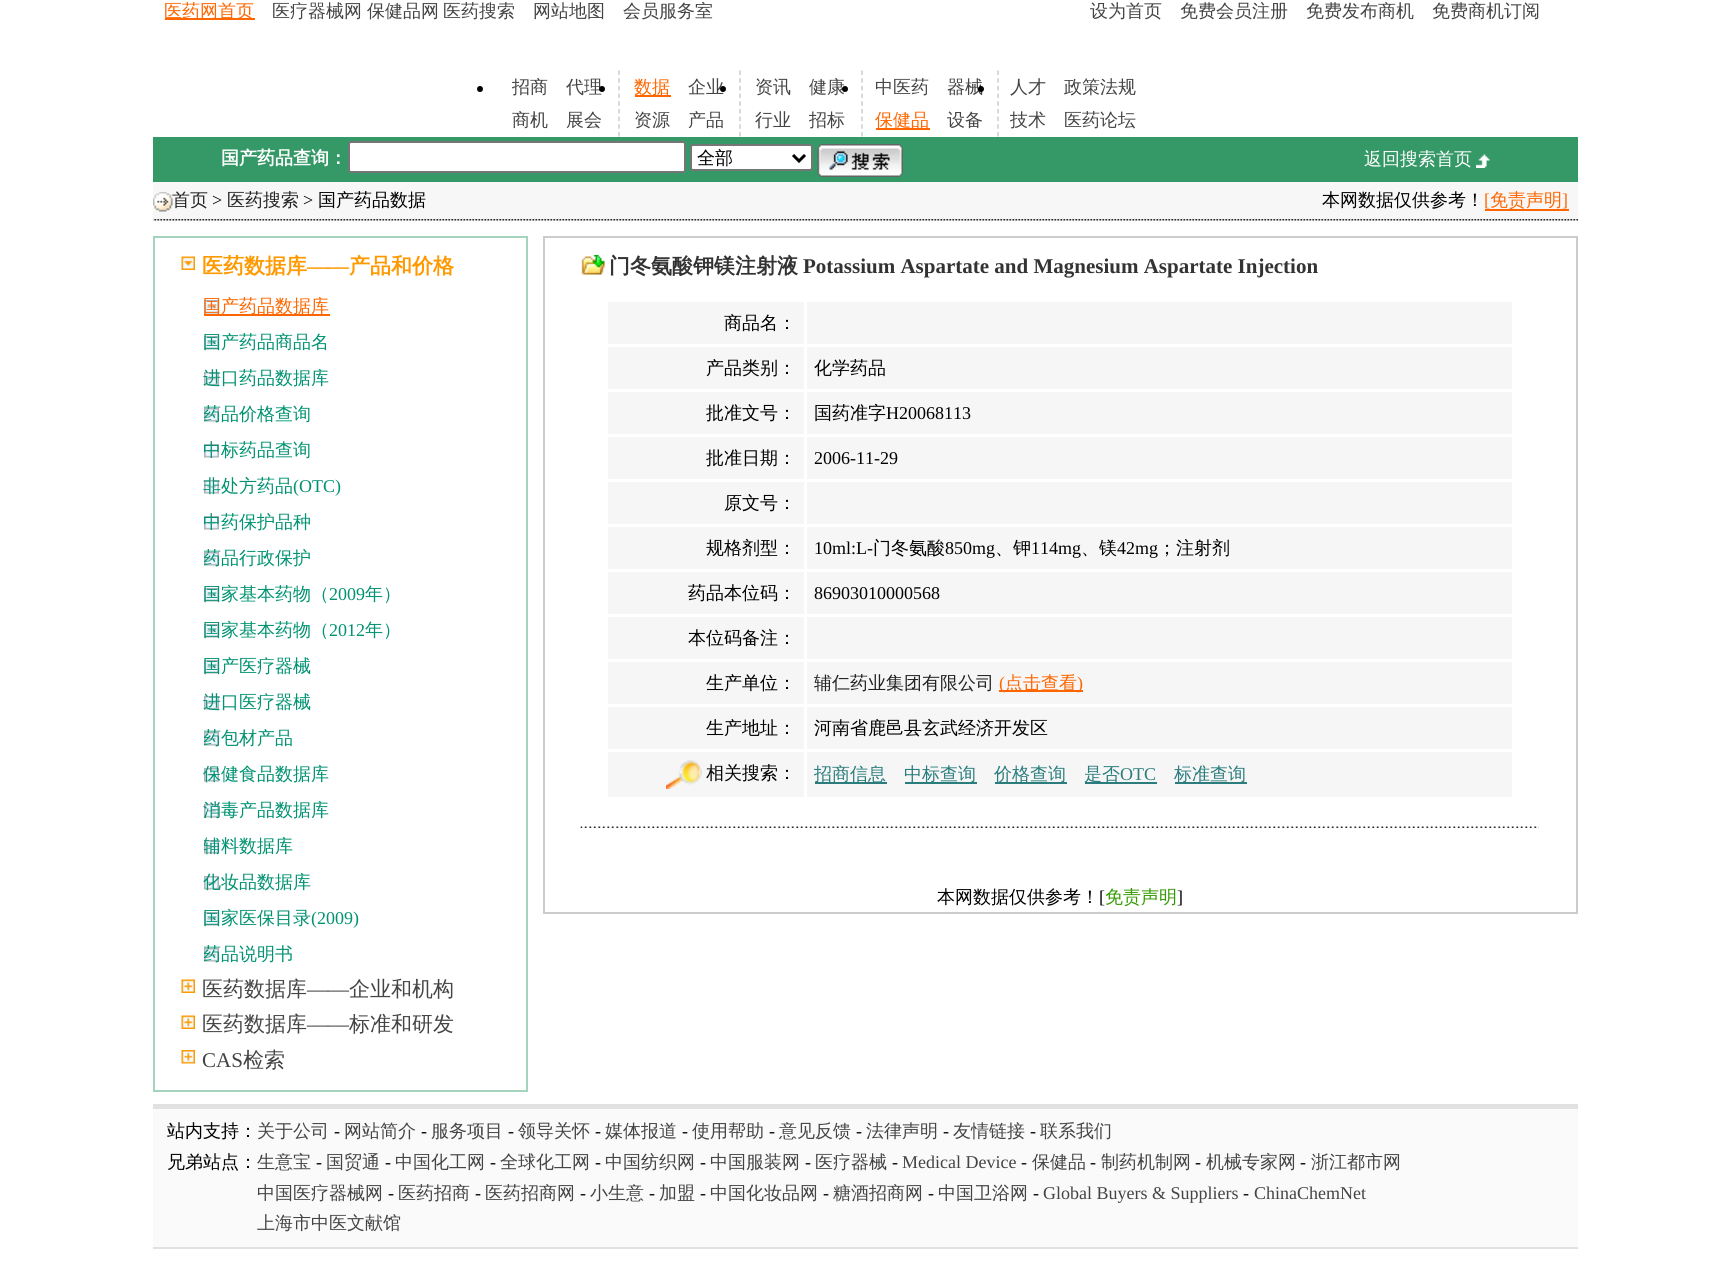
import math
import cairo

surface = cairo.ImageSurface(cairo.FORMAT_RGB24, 1729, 1267)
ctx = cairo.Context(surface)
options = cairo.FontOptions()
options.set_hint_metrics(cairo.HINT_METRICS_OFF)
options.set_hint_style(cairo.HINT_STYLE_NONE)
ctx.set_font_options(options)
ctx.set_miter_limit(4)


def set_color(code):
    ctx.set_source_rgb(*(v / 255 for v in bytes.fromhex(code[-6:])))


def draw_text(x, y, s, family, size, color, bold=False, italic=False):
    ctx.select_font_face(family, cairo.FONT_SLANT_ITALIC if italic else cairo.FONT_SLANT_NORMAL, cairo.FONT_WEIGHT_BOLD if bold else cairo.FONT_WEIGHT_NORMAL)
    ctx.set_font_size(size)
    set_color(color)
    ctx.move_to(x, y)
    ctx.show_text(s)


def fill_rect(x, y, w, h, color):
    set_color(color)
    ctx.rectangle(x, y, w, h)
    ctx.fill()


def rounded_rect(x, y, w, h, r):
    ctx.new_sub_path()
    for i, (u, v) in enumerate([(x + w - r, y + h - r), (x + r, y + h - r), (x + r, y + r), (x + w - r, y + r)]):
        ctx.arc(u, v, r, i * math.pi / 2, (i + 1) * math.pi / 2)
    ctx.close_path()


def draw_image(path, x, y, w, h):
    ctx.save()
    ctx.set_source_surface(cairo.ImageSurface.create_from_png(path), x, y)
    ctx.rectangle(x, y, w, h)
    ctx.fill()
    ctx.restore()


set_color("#ffffff")
ctx.paint()
fill_rect(165, 18, 90, 2, "#ff6600")
draw_text(164, 17, "医药网首页", "WenQuanYi Zen Hei Medium", 18, "#ff6600")
draw_text(272, 17, "医疗器械网", "WenQuanYi Zen Hei Medium", 18, "#444444")
draw_text(367, 17, "保健品网", "WenQuanYi Zen Hei Medium", 18, "#444444")
draw_text(443, 17, "医药搜索", "WenQuanYi Zen Hei Medium", 18, "#444444")
draw_text(533, 17, "网站地图", "WenQuanYi Zen Hei Medium", 18, "#444444")
draw_text(623, 17, "会员服务室", "WenQuanYi Zen Hei Medium", 18, "#444444")
draw_text(1090, 17, "设为首页", "WenQuanYi Zen Hei Medium", 18, "#444444")
draw_text(1180, 17, "免费会员注册", "WenQuanYi Zen Hei Medium", 18, "#444444")
draw_text(1306, 17, "免费发布商机", "WenQuanYi Zen Hei Medium", 18, "#444444")
draw_text(1432, 17, "免费商机订阅", "WenQuanYi Zen Hei Medium", 18, "#444444")
ctx.new_path()
ctx.move_to(619, 70.5)
ctx.line_to(619, 136.5)
set_color("#cccccc")
ctx.set_line_width(1.5)
ctx.set_dash([4.5, 3.18])
ctx.stroke()
set_color("#000000")
ctx.arc(480, 89, 3, 0, 2 * math.pi)
ctx.fill()
draw_text(512, 93, "招商", "WenQuanYi Zen Hei Medium", 18, "#444444")
draw_text(566, 93, "代理", "WenQuanYi Zen Hei Medium", 18, "#444444")
draw_text(512, 126, "商机", "WenQuanYi Zen Hei Medium", 18, "#444444")
draw_text(566, 126, "展会", "WenQuanYi Zen Hei Medium", 18, "#444444")
ctx.new_path()
ctx.move_to(740, 70.5)
ctx.line_to(740, 136.5)
set_color("#cccccc")
ctx.stroke()
set_color("#000000")
ctx.arc(602, 89, 3, 0, 2 * math.pi)
ctx.fill()
fill_rect(635, 95, 36, 2, "#ff6600")
draw_text(634, 93, "数据", "WenQuanYi Zen Hei Medium", 18, "#ff6600")
draw_text(688, 93, "企业", "WenQuanYi Zen Hei Medium", 18, "#444444")
draw_text(634, 126, "资源", "WenQuanYi Zen Hei Medium", 18, "#444444")
draw_text(688, 126, "产品", "WenQuanYi Zen Hei Medium", 18, "#444444")
ctx.new_path()
ctx.move_to(862, 70.5)
ctx.line_to(862, 136.5)
set_color("#cccccc")
ctx.stroke()
set_color("#000000")
ctx.arc(723, 89, 3, 0, 2 * math.pi)
ctx.fill()
draw_text(755, 93, "资讯", "WenQuanYi Zen Hei Medium", 18, "#444444")
draw_text(809, 93, "健康", "WenQuanYi Zen Hei Medium", 18, "#444444")
draw_text(755, 126, "行业", "WenQuanYi Zen Hei Medium", 18, "#444444")
draw_text(809, 126, "招标", "WenQuanYi Zen Hei Medium", 18, "#444444")
ctx.new_path()
ctx.move_to(998, 70.5)
ctx.line_to(998, 136.5)
set_color("#cccccc")
ctx.stroke()
set_color("#000000")
ctx.arc(845, 89, 3, 0, 2 * math.pi)
ctx.fill()
draw_text(875, 93, "中医药", "WenQuanYi Zen Hei Medium", 18, "#444444")
draw_text(947, 93, "器械", "WenQuanYi Zen Hei Medium", 18, "#444444")
fill_rect(876, 128, 54, 2, "#ff6600")
draw_text(875, 126, "保健品", "WenQuanYi Zen Hei Medium", 18, "#ff6600")
draw_text(947, 126, "设备", "WenQuanYi Zen Hei Medium", 18, "#444444")
set_color("#000000")
ctx.new_path()
ctx.arc(981, 89, 3, 0, 2 * math.pi)
ctx.fill()
draw_text(1010, 93, "人才", "WenQuanYi Zen Hei Medium", 18, "#444444")
draw_text(1064, 93, "政策法规", "WenQuanYi Zen Hei Medium", 18, "#444444")
draw_text(1010, 126, "技术", "WenQuanYi Zen Hei Medium", 18, "#444444")
draw_text(1064, 126, "医药论坛", "WenQuanYi Zen Hei Medium", 18, "#444444")
fill_rect(153, 137, 1425, 45, "#359967")
draw_text(221, 164, "国产药品查询：", "WenQuanYi Zen Hei", 18, "#ffffff", bold=True)
rounded_rect(349, 142, 336, 30, 2)
ctx.fill_preserve()
set_color("#767676")
ctx.set_line_width(2)
ctx.set_dash([])
ctx.stroke()
set_color("#ffffff")
rounded_rect(691, 145, 121, 25, 2)
ctx.fill_preserve()
set_color("#767676")
ctx.stroke()
ctx.new_path()
ctx.move_to(793, 155)
ctx.line_to(799, 161)
ctx.line_to(805, 155)
set_color("#000000")
ctx.set_line_width(3)
ctx.stroke()
draw_text(697, 164, "全部", "WenQuanYi Zen Hei Medium", 18, "#000000")
draw_image("assets/img1.png", 817, 144, 86, 33)
draw_text(1364, 165, "返回搜索首页", "WenQuanYi Zen Hei Medium", 18, "#ffffff")
draw_image("assets/img2.png", 1476, 154, 14, 14)
fill_rect(153, 182, 1425, 39, "#f7f7f7")
draw_image("assets/img3.png", 153, 192, 20, 20)
draw_text(172, 206, "首页", "WenQuanYi Zen Hei Medium", 18, "#222222")
draw_text(212, 206, ">", "Liberation Serif", 18, "#000000")
draw_text(227, 206, "医药搜索", "WenQuanYi Zen Hei Medium", 18, "#222222")
draw_text(303, 206, ">", "Liberation Serif", 18, "#000000")
draw_text(318, 206, "国产药品数据", "WenQuanYi Zen Hei Medium", 18, "#000000")
draw_text(1322, 206, "本网数据仅供参考！", "WenQuanYi Zen Hei Medium", 18, "#000000")
draw_text(1484, 206, "[", "Liberation Serif", 18, "#ff6600")
fill_rect(1485, 209, 84, 2, "#ff6600")
draw_text(1490, 206, "免责声明", "WenQuanYi Zen Hei Medium", 18, "#ff6600")
draw_text(1562, 206, "]", "Liberation Serif", 18, "#ff6600")
draw_image("assets/img4.png", 153, 219, 1425, 2)
ctx.rectangle(154, 237, 373, 854)
set_color("#a4d4be")
ctx.set_line_width(2)
ctx.stroke()
draw_image("assets/img5.png", 181, 256, 14, 14)
draw_text(202, 273, "医药数据库", "WenQuanYi Zen Hei", 21, "#ff9900", bold=True)
draw_text(307, 273, "——", "Liberation Serif", 21, "#ff9900", bold=True)
draw_text(349, 273, "产品和价格", "WenQuanYi Zen Hei", 21, "#ff9900", bold=True)
draw_image("assets/img6.png", 204, 300, 15, 14)
fill_rect(204, 314, 126, 2, "#ff6600")
draw_text(203, 312, "国产药品数据库", "WenQuanYi Zen Hei Medium", 18, "#ff6600")
draw_image("assets/img6.png", 204, 336, 15, 14)
draw_text(203, 348, "国产药品商品名", "WenQuanYi Zen Hei Medium", 18, "#009271")
draw_image("assets/img6.png", 204, 372, 15, 14)
draw_text(203, 384, "进口药品数据库", "WenQuanYi Zen Hei Medium", 18, "#009271")
draw_image("assets/img6.png", 204, 408, 15, 14)
ctx.save()
ctx.rectangle(204, 396, 311, 36)
ctx.clip()
draw_text(203, 420, "药品价格查询", "WenQuanYi Zen Hei Medium", 18, "#009271")
ctx.restore()
draw_image("assets/img6.png", 204, 444, 15, 14)
draw_text(203, 456, "中标药品查询", "WenQuanYi Zen Hei Medium", 18, "#009271")
draw_image("assets/img6.png", 204, 480, 15, 14)
draw_text(203, 492, "非处方药品", "WenQuanYi Zen Hei Medium", 18, "#009271")
draw_text(293, 492, "(OTC)", "Liberation Serif", 18, "#009271")
draw_image("assets/img6.png", 204, 516, 15, 14)
draw_text(203, 528, "中药保护品种", "WenQuanYi Zen Hei Medium", 18, "#009271")
draw_image("assets/img6.png", 204, 552, 15, 14)
ctx.save()
ctx.rectangle(204, 540, 311, 36)
ctx.clip()
draw_text(203, 564, "药品行政保护", "WenQuanYi Zen Hei Medium", 18, "#009271")
ctx.restore()
draw_image("assets/img6.png", 204, 588, 15, 14)
draw_text(203, 600, "国家基本药物（", "WenQuanYi Zen Hei Medium", 18, "#009271")
draw_text(329, 600, "2009", "Liberation Serif", 18, "#009271")
draw_text(365, 600, "年）", "WenQuanYi Zen Hei Medium", 18, "#009271")
draw_image("assets/img6.png", 204, 624, 15, 14)
draw_text(203, 636, "国家基本药物（", "WenQuanYi Zen Hei Medium", 18, "#009271")
draw_text(329, 636, "2012", "Liberation Serif", 18, "#009271")
draw_text(365, 636, "年）", "WenQuanYi Zen Hei Medium", 18, "#009271")
draw_image("assets/img6.png", 204, 660, 15, 14)
draw_text(203, 672, "国产医疗器械", "WenQuanYi Zen Hei Medium", 18, "#009271")
draw_image("assets/img6.png", 204, 696, 15, 14)
draw_text(203, 708, "进口医疗器械", "WenQuanYi Zen Hei Medium", 18, "#009271")
draw_image("assets/img6.png", 204, 732, 15, 14)
ctx.save()
ctx.rectangle(204, 720, 311, 36)
ctx.clip()
draw_text(203, 744, "药包材产品", "WenQuanYi Zen Hei Medium", 18, "#009271")
ctx.restore()
draw_image("assets/img6.png", 204, 768, 15, 14)
draw_text(203, 780, "保健食品数据库", "WenQuanYi Zen Hei Medium", 18, "#009271")
draw_image("assets/img6.png", 204, 804, 15, 14)
draw_text(203, 816, "消毒产品数据库", "WenQuanYi Zen Hei Medium", 18, "#009271")
draw_image("assets/img6.png", 204, 840, 15, 14)
ctx.save()
ctx.rectangle(204, 828, 311, 36)
ctx.clip()
draw_text(203, 852, "辅料数据库", "WenQuanYi Zen Hei Medium", 18, "#009271")
ctx.restore()
draw_image("assets/img6.png", 204, 876, 15, 14)
draw_text(203, 888, "化妆品数据库", "WenQuanYi Zen Hei Medium", 18, "#009271")
draw_image("assets/img6.png", 204, 912, 15, 14)
draw_text(203, 924, "国家医保目录", "WenQuanYi Zen Hei Medium", 18, "#009271")
draw_text(311, 924, "(2009)", "Liberation Serif", 18, "#009271")
draw_image("assets/img6.png", 204, 948, 15, 14)
ctx.save()
ctx.rectangle(204, 936, 311, 36)
ctx.clip()
draw_text(203, 960, "药品说明书", "WenQuanYi Zen Hei Medium", 18, "#009271")
ctx.restore()
draw_image("assets/img7.png", 181, 979, 14, 14)
draw_text(202, 996, "医药数据库", "WenQuanYi Zen Hei Medium", 21, "#444444")
draw_text(307, 996, "——", "Liberation Serif", 21, "#444444")
draw_text(349, 996, "企业和机构", "WenQuanYi Zen Hei Medium", 21, "#444444")
draw_image("assets/img7.png", 181, 1015, 14, 14)
draw_text(202, 1031, "医药数据库", "WenQuanYi Zen Hei Medium", 21, "#444444")
draw_text(307, 1031, "——", "Liberation Serif", 21, "#444444")
draw_text(349, 1031, "标准和研发", "WenQuanYi Zen Hei Medium", 21, "#444444")
draw_image("assets/img8.png", 181, 1050, 14, 14)
draw_text(202, 1067, "CAS", "Liberation Serif", 21, "#444444")
draw_text(243, 1067, "检索", "WenQuanYi Zen Hei Medium", 21, "#444444")
ctx.rectangle(544, 237, 1033, 676)
set_color("#cccccc")
ctx.stroke()
draw_image("assets/img9.png", 581, 255, 24, 20)
draw_text(609, 273, "门冬氨酸钾镁注射液", "WenQuanYi Zen Hei", 21, "#333333", bold=True)
draw_text(803, 273, "Potassium Aspartate and Magnesium Aspartate Injection", "Liberation Serif", 21, "#333333", bold=True)
fill_rect(608, 302, 196, 42, "#f6f6f6")
draw_text(724, 329, "商品名：", "WenQuanYi Zen Hei Medium", 18, "#000000")
fill_rect(807, 302, 705, 42, "#f6f6f6")
fill_rect(608, 347, 196, 42, "#f6f6f6")
draw_text(706, 374, "产品类别：", "WenQuanYi Zen Hei Medium", 18, "#000000")
fill_rect(807, 347, 705, 42, "#f6f6f6")
draw_text(814, 374, "化学药品", "WenQuanYi Zen Hei Medium", 18, "#000000")
fill_rect(608, 392, 196, 42, "#f6f6f6")
draw_text(706, 419, "批准文号：", "WenQuanYi Zen Hei Medium", 18, "#000000")
fill_rect(807, 392, 705, 42, "#f6f6f6")
draw_text(814, 419, "国药准字", "WenQuanYi Zen Hei Medium", 18, "#000000")
draw_text(886, 419, "H20068113", "Liberation Serif", 18, "#000000")
fill_rect(608, 437, 196, 42, "#f6f6f6")
draw_text(706, 464, "批准日期：", "WenQuanYi Zen Hei Medium", 18, "#000000")
fill_rect(807, 437, 705, 42, "#f6f6f6")
draw_text(814, 464, "2006-11-29", "Liberation Serif", 18, "#000000")
fill_rect(608, 482, 196, 42, "#f6f6f6")
draw_text(724, 509, "原文号：", "WenQuanYi Zen Hei Medium", 18, "#000000")
fill_rect(807, 482, 705, 42, "#f6f6f6")
fill_rect(608, 527, 196, 42, "#f6f6f6")
draw_text(706, 554, "规格剂型：", "WenQuanYi Zen Hei Medium", 18, "#000000")
fill_rect(807, 527, 705, 42, "#f6f6f6")
draw_text(814, 554, "10ml:L-", "Liberation Serif", 18, "#000000")
draw_text(873, 554, "门冬氨酸", "WenQuanYi Zen Hei Medium", 18, "#000000")
draw_text(945, 554, "850mg", "Liberation Serif", 18, "#000000")
draw_text(995, 554, "、钾", "WenQuanYi Zen Hei Medium", 18, "#000000")
draw_text(1031, 554, "114mg", "Liberation Serif", 18, "#000000")
draw_text(1081, 554, "、镁", "WenQuanYi Zen Hei Medium", 18, "#000000")
draw_text(1117, 554, "42mg", "Liberation Serif", 18, "#000000")
draw_text(1158, 554, "；注射剂", "WenQuanYi Zen Hei Medium", 18, "#000000")
fill_rect(608, 572, 196, 42, "#f6f6f6")
draw_text(688, 599, "药品本位码：", "WenQuanYi Zen Hei Medium", 18, "#000000")
fill_rect(807, 572, 705, 42, "#f6f6f6")
draw_text(814, 599, "86903010000568", "Liberation Serif", 18, "#000000")
fill_rect(608, 617, 196, 42, "#f6f6f6")
draw_text(688, 644, "本位码备注：", "WenQuanYi Zen Hei Medium", 18, "#000000")
fill_rect(807, 617, 705, 42, "#f6f6f6")
fill_rect(608, 662, 196, 42, "#f6f6f6")
draw_text(706, 689, "生产单位：", "WenQuanYi Zen Hei Medium", 18, "#000000")
fill_rect(807, 662, 705, 42, "#f6f6f6")
draw_text(814, 689, "辅仁药业集团有限公司", "WenQuanYi Zen Hei Medium", 18, "#222222")
fill_rect(999, 690, 84, 2, "#ff6600")
draw_text(999, 689, "(", "Liberation Serif", 18, "#ff6600")
draw_text(1005, 689, "点击查看", "WenQuanYi Zen Hei Medium", 18, "#ff6600")
draw_text(1077, 689, ")", "Liberation Serif", 18, "#ff6600")
fill_rect(608, 707, 196, 42, "#f6f6f6")
draw_text(706, 734, "生产地址：", "WenQuanYi Zen Hei Medium", 18, "#000000")
fill_rect(807, 707, 705, 42, "#f6f6f6")
draw_text(814, 734, "河南省鹿邑县玄武经济开发区", "WenQuanYi Zen Hei Medium", 18, "#000000")
fill_rect(608, 752, 196, 45, "#f6f6f6")
draw_image("assets/img10.png", 666, 760, 36, 29)
draw_text(706, 779, "相关搜索：", "WenQuanYi Zen Hei Medium", 18, "#000000")
fill_rect(807, 752, 705, 45, "#f6f6f6")
fill_rect(815, 782, 72, 2, "#2b7d7d")
draw_text(814, 780, "招商信息", "WenQuanYi Zen Hei Medium", 18, "#2b7d7d")
fill_rect(905, 782, 72, 2, "#2b7d7d")
draw_text(904, 780, "中标查询", "WenQuanYi Zen Hei Medium", 18, "#2b7d7d")
fill_rect(995, 782, 72, 2, "#2b7d7d")
draw_text(994, 780, "价格查询", "WenQuanYi Zen Hei Medium", 18, "#2b7d7d")
fill_rect(1085, 782, 72, 2, "#2b7d7d")
draw_text(1084, 780, "是否", "WenQuanYi Zen Hei Medium", 18, "#2b7d7d")
draw_text(1120, 780, "OTC", "Liberation Serif", 18, "#2b7d7d")
fill_rect(1175, 782, 72, 2, "#2b7d7d")
draw_text(1174, 780, "标准查询", "WenQuanYi Zen Hei Medium", 18, "#2b7d7d")
draw_image("assets/img11.png", 580, 826, 959, 2)
draw_text(937, 903, "本网数据仅供参考！", "WenQuanYi Zen Hei Medium", 18, "#000000")
draw_text(1099, 903, "[", "Liberation Serif", 18, "#000000")
draw_text(1105, 903, "免责声明", "WenQuanYi Zen Hei Medium", 18, "#339900")
draw_text(1177, 903, "]", "Liberation Serif", 18, "#000000")
fill_rect(153, 1104, 1425, 5, "#e1e1e1")
fill_rect(153, 1109, 1425, 138, "#fafafa")
fill_rect(153, 1247, 1425, 2, "#e1e1e1")
draw_text(167, 1137, "站内支持：", "WenQuanYi Zen Hei Medium", 18, "#000000")
draw_text(257, 1137, "关于公司", "WenQuanYi Zen Hei Medium", 18, "#444444")
draw_text(334, 1137, "-", "Liberation Serif", 18, "#000000")
draw_text(344, 1137, "网站简介", "WenQuanYi Zen Hei Medium", 18, "#444444")
draw_text(421, 1137, "-", "Liberation Serif", 18, "#000000")
draw_text(431, 1137, "服务项目", "WenQuanYi Zen Hei Medium", 18, "#444444")
draw_text(508, 1137, "-", "Liberation Serif", 18, "#000000")
draw_text(518, 1137, "领导关怀", "WenQuanYi Zen Hei Medium", 18, "#444444")
draw_text(595, 1137, "-", "Liberation Serif", 18, "#000000")
draw_text(605, 1137, "媒体报道", "WenQuanYi Zen Hei Medium", 18, "#444444")
draw_text(682, 1137, "-", "Liberation Serif", 18, "#000000")
draw_text(692, 1137, "使用帮助", "WenQuanYi Zen Hei Medium", 18, "#444444")
draw_text(769, 1137, "-", "Liberation Serif", 18, "#000000")
draw_text(779, 1137, "意见反馈", "WenQuanYi Zen Hei Medium", 18, "#444444")
draw_text(856, 1137, "-", "Liberation Serif", 18, "#000000")
draw_text(866, 1137, "法律声明", "WenQuanYi Zen Hei Medium", 18, "#444444")
draw_text(943, 1137, "-", "Liberation Serif", 18, "#000000")
draw_text(953, 1137, "友情链接", "WenQuanYi Zen Hei Medium", 18, "#444444")
draw_text(1030, 1137, "-", "Liberation Serif", 18, "#000000")
draw_text(1040, 1137, "联系我们", "WenQuanYi Zen Hei Medium", 18, "#444444")
draw_text(167, 1168, "兄弟站点：", "WenQuanYi Zen Hei Medium", 18, "#000000")
draw_text(257, 1168, "生意宝", "WenQuanYi Zen Hei Medium", 18, "#444444")
draw_text(316, 1168, "-", "Liberation Serif", 18, "#000000")
draw_text(326, 1168, "国贸通", "WenQuanYi Zen Hei Medium", 18, "#444444")
draw_text(385, 1168, "-", "Liberation Serif", 18, "#000000")
draw_text(395, 1168, "中国化工网", "WenQuanYi Zen Hei Medium", 18, "#444444")
draw_text(490, 1168, "-", "Liberation Serif", 18, "#000000")
draw_text(500, 1168, "全球化工网", "WenQuanYi Zen Hei Medium", 18, "#444444")
draw_text(595, 1168, "-", "Liberation Serif", 18, "#000000")
draw_text(605, 1168, "中国纺织网", "WenQuanYi Zen Hei Medium", 18, "#444444")
draw_text(700, 1168, "-", "Liberation Serif", 18, "#000000")
draw_text(710, 1168, "中国服装网", "WenQuanYi Zen Hei Medium", 18, "#444444")
draw_text(805, 1168, "-", "Liberation Serif", 18, "#000000")
draw_text(815, 1168, "医疗器械", "WenQuanYi Zen Hei Medium", 18, "#444444")
draw_text(892, 1168, "-", "Liberation Serif", 18, "#000000")
draw_text(902, 1168, "Medical Device", "Liberation Serif", 18, "#444444")
draw_text(1021, 1168, "-", "Liberation Serif", 18, "#000000")
draw_text(1032, 1168, "保健品", "WenQuanYi Zen Hei Medium", 18, "#444444")
draw_text(1090, 1168, "-", "Liberation Serif", 18, "#000000")
draw_text(1101, 1168, "制药机制网", "WenQuanYi Zen Hei Medium", 18, "#444444")
draw_text(1195, 1168, "-", "Liberation Serif", 18, "#000000")
draw_text(1206, 1168, "机械专家网", "WenQuanYi Zen Hei Medium", 18, "#444444")
draw_text(1300, 1168, "-", "Liberation Serif", 18, "#000000")
draw_text(1311, 1168, "浙江都市网", "WenQuanYi Zen Hei Medium", 18, "#444444")
draw_text(257, 1199, "中国医疗器械网", "WenQuanYi Zen Hei Medium", 18, "#444444")
draw_text(388, 1199, "-", "Liberation Serif", 18, "#000000")
draw_text(398, 1199, "医药招商", "WenQuanYi Zen Hei Medium", 18, "#444444")
draw_text(475, 1199, "-", "Liberation Serif", 18, "#000000")
draw_text(485, 1199, "医药招商网", "WenQuanYi Zen Hei Medium", 18, "#444444")
draw_text(580, 1199, "-", "Liberation Serif", 18, "#000000")
draw_text(590, 1199, "小生意", "WenQuanYi Zen Hei Medium", 18, "#444444")
draw_text(649, 1199, "-", "Liberation Serif", 18, "#000000")
draw_text(659, 1199, "加盟", "WenQuanYi Zen Hei Medium", 18, "#444444")
draw_text(700, 1199, "-", "Liberation Serif", 18, "#000000")
draw_text(710, 1199, "中国化妆品网", "WenQuanYi Zen Hei Medium", 18, "#444444")
draw_text(823, 1199, "-", "Liberation Serif", 18, "#000000")
draw_text(833, 1199, "糖酒招商网", "WenQuanYi Zen Hei Medium", 18, "#444444")
draw_text(928, 1199, "-", "Liberation Serif", 18, "#000000")
draw_text(938, 1199, "中国卫浴网", "WenQuanYi Zen Hei Medium", 18, "#444444")
draw_text(1033, 1199, "-", "Liberation Serif", 18, "#000000")
draw_text(1043, 1199, "Global Buyers & Suppliers", "Liberation Serif", 18, "#444444")
draw_text(1243, 1199, "-", "Liberation Serif", 18, "#000000")
draw_text(1254, 1199, "ChinaChemNet", "Liberation Serif", 18, "#444444")
draw_text(257, 1229, "上海市中医文献馆", "WenQuanYi Zen Hei Medium", 18, "#444444")
surface.write_to_png("output.png")
